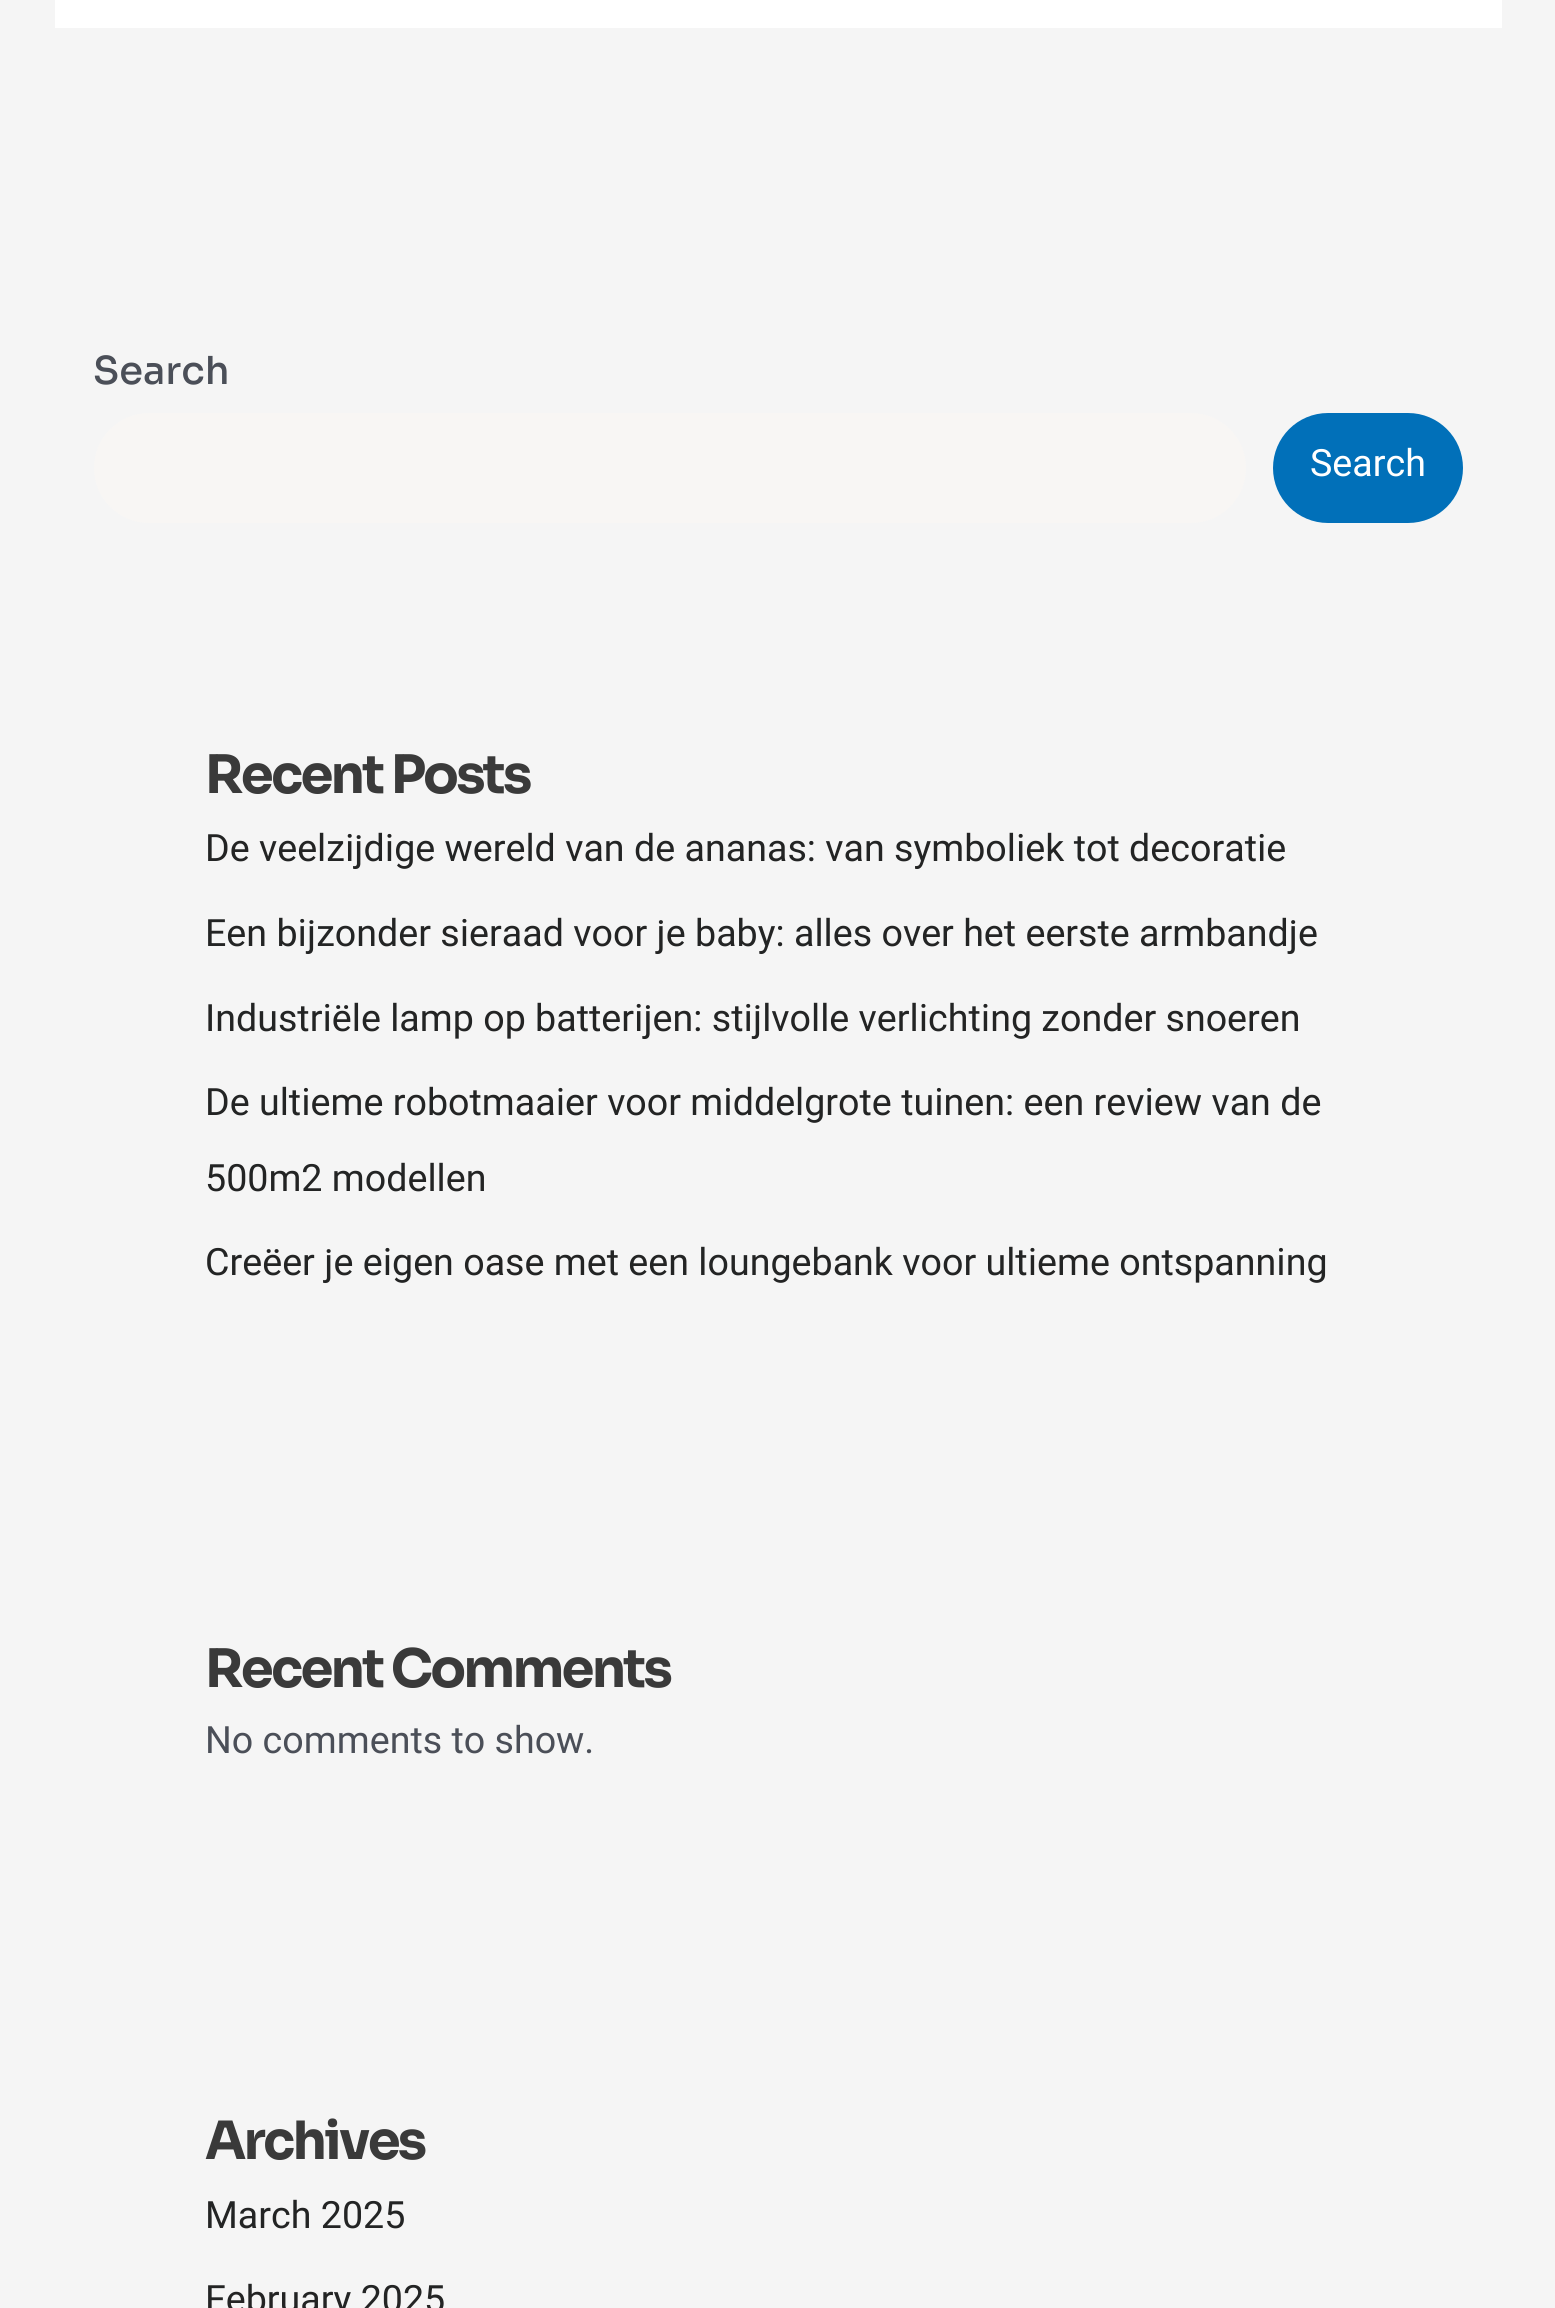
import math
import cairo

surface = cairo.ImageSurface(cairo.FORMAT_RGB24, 1555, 2308)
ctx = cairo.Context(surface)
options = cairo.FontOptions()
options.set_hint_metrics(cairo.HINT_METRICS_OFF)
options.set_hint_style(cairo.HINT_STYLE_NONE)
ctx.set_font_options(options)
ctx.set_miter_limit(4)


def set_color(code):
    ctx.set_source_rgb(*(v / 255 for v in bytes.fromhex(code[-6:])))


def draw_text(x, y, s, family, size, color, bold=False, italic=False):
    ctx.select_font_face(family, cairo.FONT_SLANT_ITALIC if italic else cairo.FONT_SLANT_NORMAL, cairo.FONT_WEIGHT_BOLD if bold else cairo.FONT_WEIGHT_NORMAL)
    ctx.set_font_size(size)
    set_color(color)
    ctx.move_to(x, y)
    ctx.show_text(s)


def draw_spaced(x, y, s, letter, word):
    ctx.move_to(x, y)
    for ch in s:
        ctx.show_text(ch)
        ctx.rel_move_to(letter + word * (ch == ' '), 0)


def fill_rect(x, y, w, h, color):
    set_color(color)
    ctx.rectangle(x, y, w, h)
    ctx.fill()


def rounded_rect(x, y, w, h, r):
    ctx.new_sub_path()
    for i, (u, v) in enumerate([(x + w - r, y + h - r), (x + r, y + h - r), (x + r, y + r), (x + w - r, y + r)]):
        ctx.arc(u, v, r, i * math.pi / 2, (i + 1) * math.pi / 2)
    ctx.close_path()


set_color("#f5f5f5")
ctx.paint()
fill_rect(55, 0, 1447, 28, "#ffffff")
draw_text(93, 384, "Search", "Sora Medium", 38.5, "#4b4f58")
set_color("#f8f6f4")
rounded_rect(94, 413, 1152, 110, 55)
ctx.fill()
set_color("#0170b9")
rounded_rect(1273, 413, 190, 110, 55)
ctx.fill()
draw_text(1310, 476, "Search", "Heebo", 37.6, "#ffffff")
ctx.select_font_face("Sora", cairo.FONT_SLANT_NORMAL, cairo.FONT_WEIGHT_BOLD)
ctx.set_font_size(52.75)
set_color("#3a3a3a")
draw_spaced(205, 793, "Recent Posts", -2.75, 0)
draw_text(205, 861, "De veelzijdige wereld van de ananas: van symboliek tot decoratie", "Heebo", 37.6, "#232424")
draw_text(205, 946, "Een bijzonder sieraad voor je baby: alles over het eerste armbandje", "Heebo", 37.6, "#232424")
draw_text(205, 1031, "Industriële lamp op batterijen: stijlvolle verlichting zonder snoeren", "Heebo", 37.6, "#232424")
draw_text(205, 1115, "De ultieme robotmaaier voor middelgrote tuinen: een review van de", "Heebo", 37.6, "#232424")
draw_text(205, 1191, "500m2 modellen", "Heebo", 37.6, "#232424")
draw_text(205, 1275, "Creëer je eigen oase met een loungebank voor ultieme ontspanning", "Heebo", 37.6, "#232424")
ctx.select_font_face("Sora", cairo.FONT_SLANT_NORMAL, cairo.FONT_WEIGHT_BOLD)
ctx.set_font_size(52.75)
set_color("#3a3a3a")
draw_spaced(205, 1687, "Recent Comments", -2.75, 0)
draw_text(205, 1753, "No comments to show.", "Heebo", 37.6, "#4b4f58")
ctx.select_font_face("Sora", cairo.FONT_SLANT_NORMAL, cairo.FONT_WEIGHT_BOLD)
ctx.set_font_size(52.75)
set_color("#3a3a3a")
draw_spaced(205, 2159, "Archives", -2.75, 0)
draw_text(205, 2228, "March 2025", "Heebo", 37.6, "#232424")
draw_text(205, 2312, "February 2025", "Heebo", 37.6, "#232424")
surface.write_to_png("output.png")
